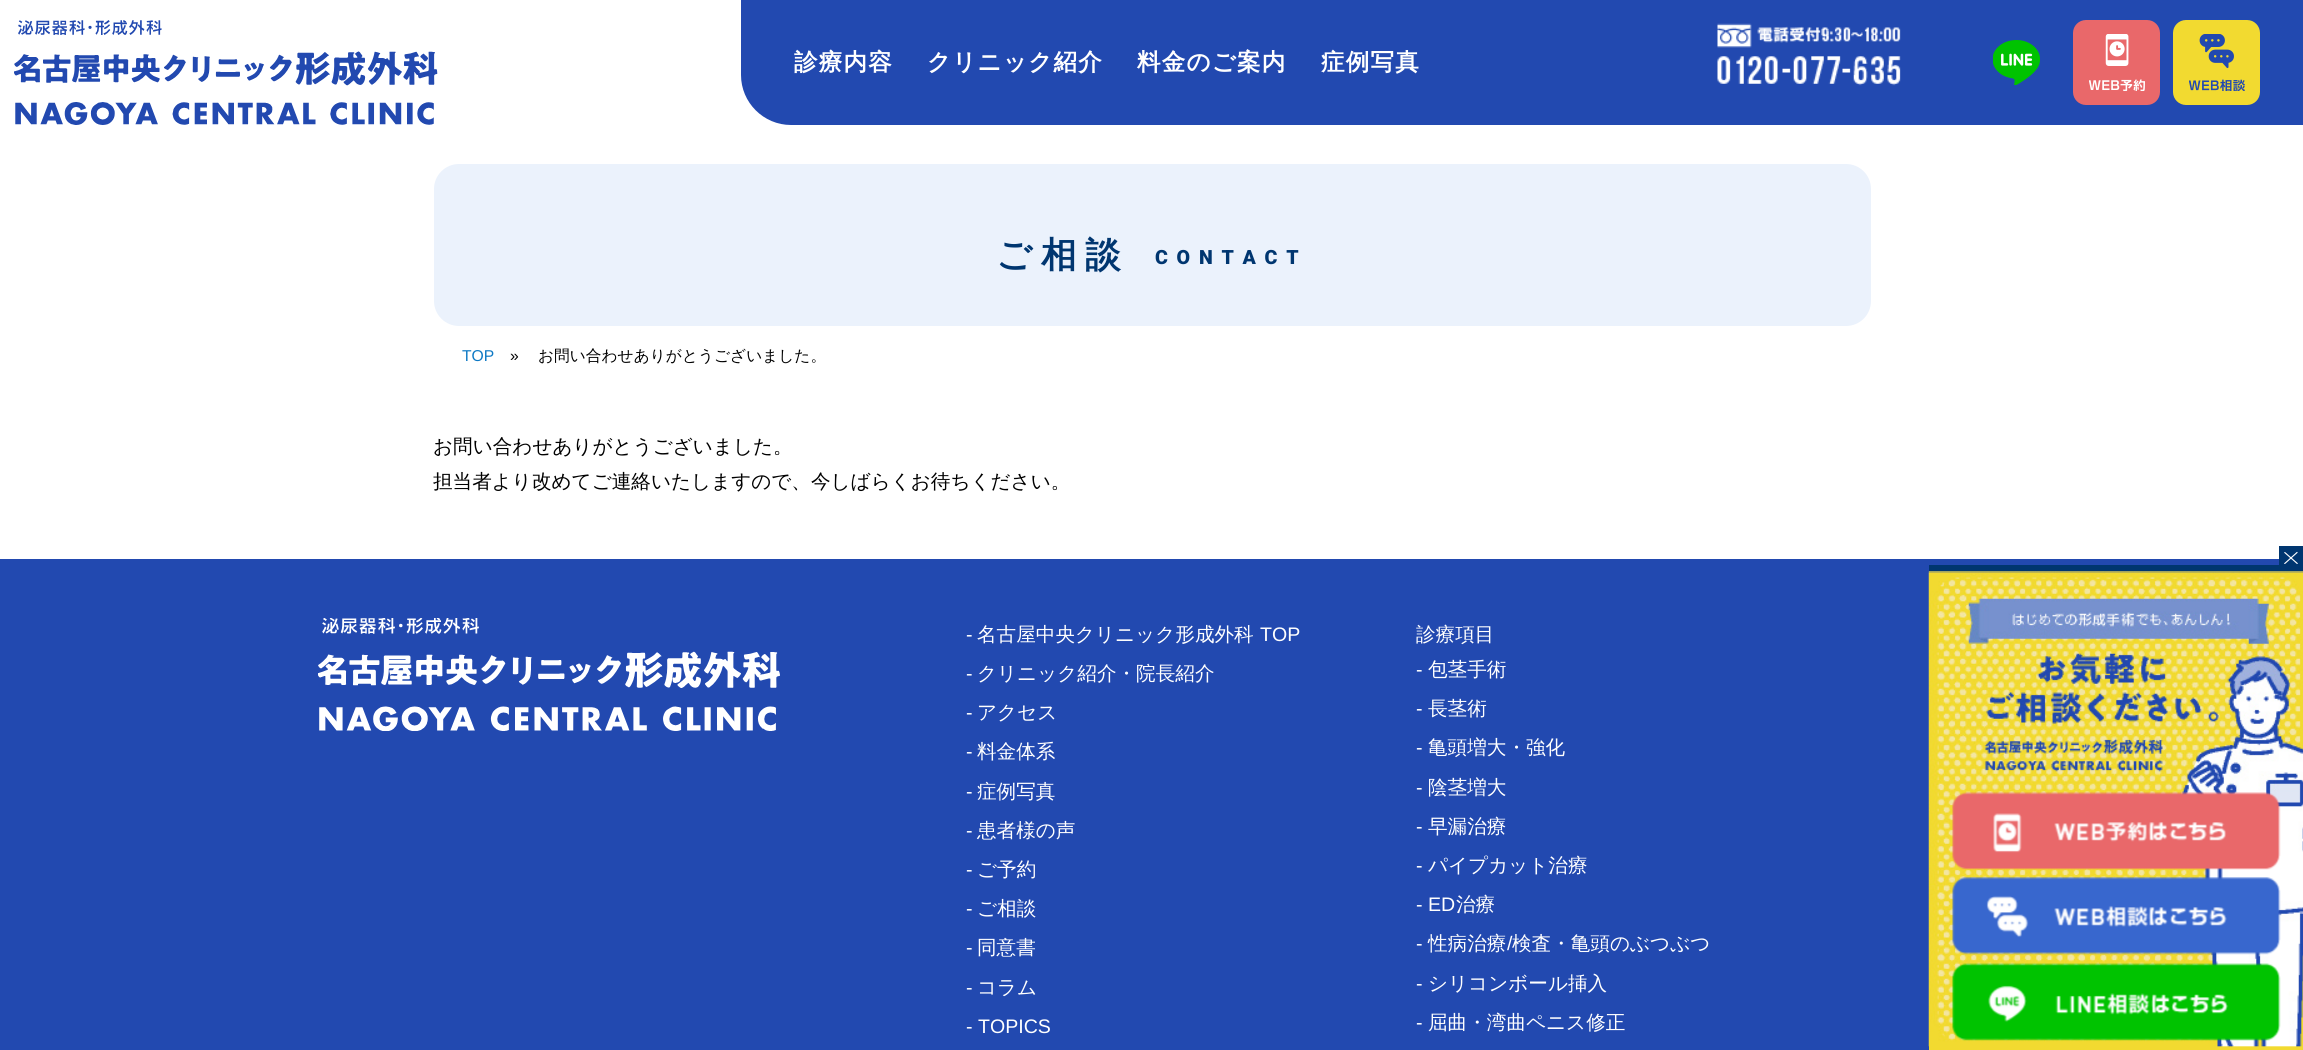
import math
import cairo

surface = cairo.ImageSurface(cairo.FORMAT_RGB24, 2303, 1050)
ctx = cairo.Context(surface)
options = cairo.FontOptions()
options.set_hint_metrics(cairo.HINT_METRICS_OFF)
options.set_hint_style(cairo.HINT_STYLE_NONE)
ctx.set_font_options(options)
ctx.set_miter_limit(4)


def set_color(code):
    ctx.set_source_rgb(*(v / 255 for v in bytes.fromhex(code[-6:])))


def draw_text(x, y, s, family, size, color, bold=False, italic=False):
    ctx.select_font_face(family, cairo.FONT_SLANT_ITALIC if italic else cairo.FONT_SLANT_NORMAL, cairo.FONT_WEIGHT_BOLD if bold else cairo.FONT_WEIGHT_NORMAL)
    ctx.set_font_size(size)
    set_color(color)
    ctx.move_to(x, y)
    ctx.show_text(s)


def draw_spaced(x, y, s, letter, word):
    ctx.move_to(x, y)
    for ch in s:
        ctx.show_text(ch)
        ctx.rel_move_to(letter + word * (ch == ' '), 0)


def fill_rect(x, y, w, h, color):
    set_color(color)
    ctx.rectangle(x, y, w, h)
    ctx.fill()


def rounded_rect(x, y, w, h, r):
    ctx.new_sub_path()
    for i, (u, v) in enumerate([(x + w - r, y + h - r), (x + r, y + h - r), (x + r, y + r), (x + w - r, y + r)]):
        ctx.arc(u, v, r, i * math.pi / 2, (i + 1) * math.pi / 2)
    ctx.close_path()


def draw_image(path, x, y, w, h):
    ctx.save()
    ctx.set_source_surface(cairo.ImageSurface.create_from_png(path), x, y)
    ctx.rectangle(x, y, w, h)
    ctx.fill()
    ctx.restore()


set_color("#ffffff")
ctx.paint()
draw_image("assets/img1.png", 14, 20, 424, 105)
set_color("#2249b0")
ctx.new_path()
ctx.move_to(741, 0)
ctx.line_to(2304, 0)
ctx.line_to(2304, 125)
ctx.line_to(791, 125)
ctx.curve_to(763.5, 125, 741, 102.5, 741, 75)
ctx.close_path()
ctx.fill()
ctx.select_font_face("WenQuanYi Zen Hei", cairo.FONT_SLANT_NORMAL, cairo.FONT_WEIGHT_BOLD)
ctx.set_font_size(23.5)
set_color("#ffffff")
draw_spaced(794, 70, "診療内容", 1.25, 0)
draw_spaced(927, 70, "クリニック紹介", 1.25, 0)
draw_spaced(1137, 70, "料金のご案内", 1.25, 0)
draw_spaced(1321, 70, "症例写真", 1.25, 0)
draw_image("assets/img2.png", 1717, 23, 184, 63)
draw_image("assets/img3.png", 1993, 40, 47, 45)
set_color("#e9686a")
rounded_rect(2073, 20, 87, 85, 13)
ctx.fill()
draw_image("assets/img4.png", 2089, 34, 56, 57)
set_color("#f2da30")
rounded_rect(2173, 20, 87, 85, 13)
ctx.fill()
draw_image("assets/img5.png", 2189, 34, 56, 57)
set_color("#ebf2fc")
rounded_rect(434, 164, 1437, 162, 25)
ctx.fill()
ctx.set_font_size(35.5)
set_color("#003670")
draw_spaced(996, 267, "ご相談", 8.75, 0)
ctx.select_font_face("Roboto Black")
ctx.set_font_size(19.6)
draw_spaced(1155, 264, "CONTACT", 8.75, 0)
draw_text(462, 361, "TOP", "Liberation Sans", 15.7, "#0c78c4")
draw_text(510, 361, "»", "Liberation Sans", 15.7, "#000000")
draw_text(538, 361, "お問い合わせありがとうございました。", "WenQuanYi Zen Hei Medium", 15.7, "#000000")
draw_text(433, 453, "お問い合わせありがとうございました。", "WenQuanYi Zen Hei Medium", 19.6, "#000000")
draw_text(433, 488, "担当者より改めてご連絡いたしますので、今しばらくお待ちください。", "WenQuanYi Zen Hei Medium", 19.6, "#000000")
fill_rect(0, 559, 2279, 491, "#2249b0")
draw_image("assets/img6.png", 318, 618, 462, 113)
draw_text(966, 641, "-", "Liberation Sans", 19.6, "#ffffff")
draw_text(977, 641, "名古屋中央クリニック形成外科", "WenQuanYi Zen Hei Medium", 19.6, "#ffffff")
draw_text(1260, 641, "TOP", "Liberation Sans", 19.6, "#ffffff")
draw_text(966, 680, "-", "Liberation Sans", 19.6, "#ffffff")
draw_text(977, 680, "クリニック紹介・院長紹介", "WenQuanYi Zen Hei Medium", 19.6, "#ffffff")
draw_text(966, 719, "-", "Liberation Sans", 19.6, "#ffffff")
draw_text(977, 719, "アクセス", "WenQuanYi Zen Hei Medium", 19.6, "#ffffff")
draw_text(966, 758, "-", "Liberation Sans", 19.6, "#ffffff")
draw_text(977, 758, "料金体系", "WenQuanYi Zen Hei Medium", 19.6, "#ffffff")
draw_text(966, 798, "-", "Liberation Sans", 19.6, "#ffffff")
draw_text(977, 798, "症例写真", "WenQuanYi Zen Hei Medium", 19.6, "#ffffff")
draw_text(966, 837, "-", "Liberation Sans", 19.6, "#ffffff")
draw_text(977, 837, "患者様の声", "WenQuanYi Zen Hei Medium", 19.6, "#ffffff")
draw_text(966, 876, "-", "Liberation Sans", 19.6, "#ffffff")
draw_text(977, 876, "ご予約", "WenQuanYi Zen Hei Medium", 19.6, "#ffffff")
draw_text(966, 915, "-", "Liberation Sans", 19.6, "#ffffff")
draw_text(977, 915, "ご相談", "WenQuanYi Zen Hei Medium", 19.6, "#ffffff")
draw_text(966, 954, "-", "Liberation Sans", 19.6, "#ffffff")
draw_text(977, 954, "同意書", "WenQuanYi Zen Hei Medium", 19.6, "#ffffff")
draw_text(966, 994, "-", "Liberation Sans", 19.6, "#ffffff")
draw_text(977, 994, "コラム", "WenQuanYi Zen Hei Medium", 19.6, "#ffffff")
draw_text(966, 1033, "- TOPICS", "Liberation Sans", 19.6, "#ffffff")
draw_text(1416, 641, "診療項目", "WenQuanYi Zen Hei Medium", 19.6, "#ffffff")
draw_text(1416, 676, "-", "Liberation Sans", 19.6, "#ffffff")
draw_text(1428, 676, "包茎手術", "WenQuanYi Zen Hei Medium", 19.6, "#ffffff")
draw_text(1416, 715, "-", "Liberation Sans", 19.6, "#ffffff")
draw_text(1428, 715, "長茎術", "WenQuanYi Zen Hei Medium", 19.6, "#ffffff")
draw_text(1416, 754, "-", "Liberation Sans", 19.6, "#ffffff")
draw_text(1428, 754, "亀頭増大・強化", "WenQuanYi Zen Hei Medium", 19.6, "#ffffff")
draw_text(1416, 794, "-", "Liberation Sans", 19.6, "#ffffff")
draw_text(1428, 794, "陰茎増大", "WenQuanYi Zen Hei Medium", 19.6, "#ffffff")
draw_text(1416, 833, "-", "Liberation Sans", 19.6, "#ffffff")
draw_text(1428, 833, "早漏治療", "WenQuanYi Zen Hei Medium", 19.6, "#ffffff")
draw_text(1416, 872, "-", "Liberation Sans", 19.6, "#ffffff")
draw_text(1428, 872, "パイプカット治療", "WenQuanYi Zen Hei Medium", 19.6, "#ffffff")
draw_text(1416, 911, "- ED", "Liberation Sans", 19.6, "#ffffff")
draw_text(1456, 911, "治療", "WenQuanYi Zen Hei Medium", 19.6, "#ffffff")
draw_text(1416, 950, "-", "Liberation Sans", 19.6, "#ffffff")
draw_text(1428, 950, "性病治療", "WenQuanYi Zen Hei Medium", 19.6, "#ffffff")
draw_text(1507, 950, "/", "Liberation Sans", 19.6, "#ffffff")
draw_text(1512, 950, "検査・亀頭のぶつぶつ", "WenQuanYi Zen Hei Medium", 19.6, "#ffffff")
draw_text(1416, 990, "-", "Liberation Sans", 19.6, "#ffffff")
draw_text(1428, 990, "シリコンボール挿入", "WenQuanYi Zen Hei Medium", 19.6, "#ffffff")
draw_text(1416, 1029, "-", "Liberation Sans", 19.6, "#ffffff")
draw_text(1428, 1029, "屈曲・湾曲ペニス修正", "WenQuanYi Zen Hei Medium", 19.6, "#ffffff")
fill_rect(1929, 571, 374, 479, "#f2da30")
fill_rect(1929, 565, 374, 6, "#003670")
fill_rect(2279, 546, 24, 19, "#003670")
draw_image("assets/img7.png", 2284, 551, 14, 13)
draw_image("assets/img8.png", 1928, 571, 375, 476)
draw_image("assets/img9.png", 1952, 792, 329, 78)
draw_image("assets/img10.png", 1952, 877, 329, 78)
draw_image("assets/img11.png", 1952, 963, 329, 78)
surface.write_to_png("output.png")
